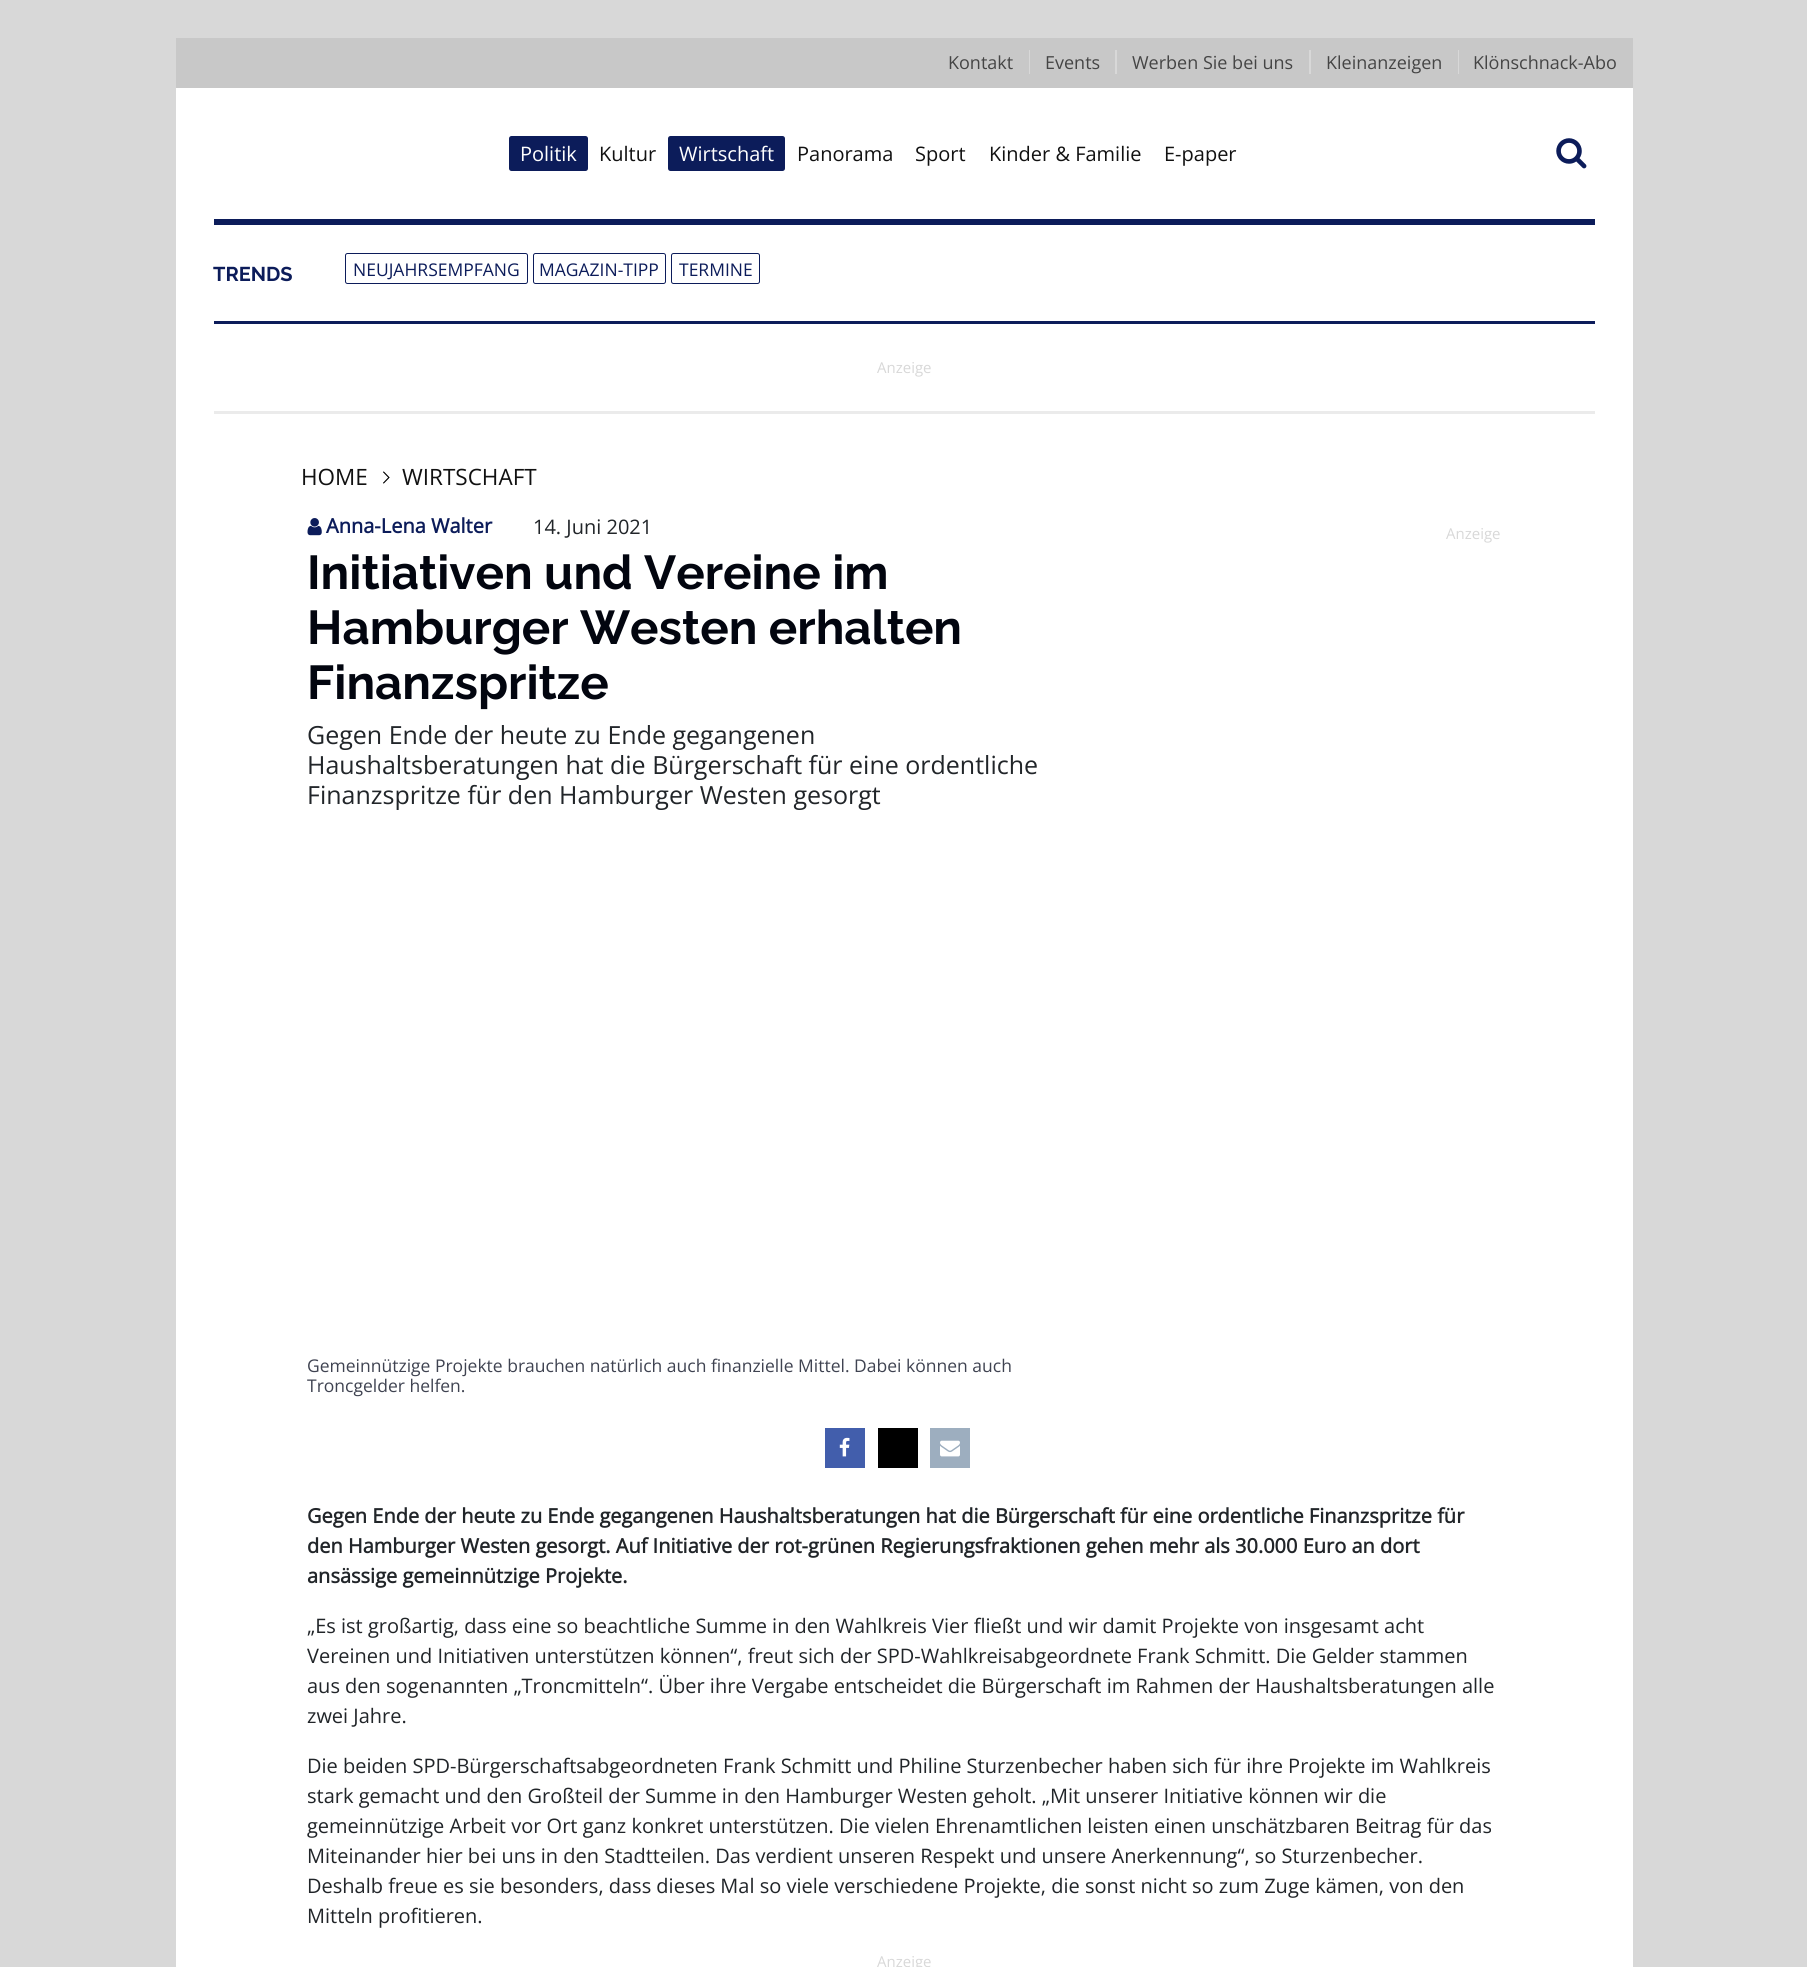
import math
import cairo

surface = cairo.ImageSurface(cairo.FORMAT_RGB24, 1807, 1967)
ctx = cairo.Context(surface)
options = cairo.FontOptions()
options.set_hint_metrics(cairo.HINT_METRICS_OFF)
options.set_hint_style(cairo.HINT_STYLE_NONE)
ctx.set_font_options(options)
ctx.set_miter_limit(4)


def set_color(code):
    ctx.set_source_rgb(*(v / 255 for v in bytes.fromhex(code[-6:])))


def draw_text(x, y, s, family, size, color, bold=False, italic=False):
    ctx.select_font_face(family, cairo.FONT_SLANT_ITALIC if italic else cairo.FONT_SLANT_NORMAL, cairo.FONT_WEIGHT_BOLD if bold else cairo.FONT_WEIGHT_NORMAL)
    ctx.set_font_size(size)
    set_color(color)
    ctx.move_to(x, y)
    ctx.show_text(s)


def fill_rect(x, y, w, h, color):
    set_color(color)
    ctx.rectangle(x, y, w, h)
    ctx.fill()


def rounded_rect(x, y, w, h, r):
    ctx.new_sub_path()
    for i, (u, v) in enumerate([(x + w - r, y + h - r), (x + r, y + h - r), (x + r, y + r), (x + w - r, y + r)]):
        ctx.arc(u, v, r, i * math.pi / 2, (i + 1) * math.pi / 2)
    ctx.close_path()


def draw_image(path, x, y, w, h):
    ctx.save()
    ctx.set_source_surface(cairo.ImageSurface.create_from_png(path), x, y)
    ctx.rectangle(x, y, w, h)
    ctx.fill()
    ctx.restore()


set_color("#d8d8d8")
ctx.paint()
fill_rect(176, 88, 1457, 1879, "#ffffff")
fill_rect(176, 38, 1457, 50, "#c8c8c8")
draw_text(948, 69, "Kontakt", "Open Sans", 18, "#454545")
draw_text(1045, 69, "Events", "Open Sans", 18, "#454545")
fill_rect(1115, 50, 2, 24, "#d8d8d8")
fill_rect(1029, 50, 1, 24, "#d8d8d8")
draw_text(1132, 69, "Werben Sie bei uns", "Open Sans", 18, "#454545")
fill_rect(1309, 50, 2, 24, "#d8d8d8")
draw_text(1326, 69, "Kleinanzeigen", "Open Sans", 18, "#454545")
fill_rect(1458, 50, 1, 24, "#d8d8d8")
draw_text(1473, 69, "Klönschnack-Abo", "Open Sans", 18, "#454545")
fill_rect(214, 219, 1381, 6, "#0c1c5a")
rounded_rect(509, 136, 79, 35, 2.5)
ctx.fill()
draw_text(520, 161, "Politik", "Open Sans", 20, "#ffffff")
draw_text(599, 161, "Kultur", "Open Sans", 20, "#111111")
set_color("#0c1c5a")
rounded_rect(668, 136, 117, 35, 2.5)
ctx.fill()
draw_text(679, 161, "Wirtschaft", "Open Sans", 20, "#ffffff")
draw_text(797, 161, "Panorama", "Open Sans", 20, "#111111")
draw_text(915, 161, "Sport", "Open Sans", 20, "#111111")
draw_text(989, 161, "Kinder & Familie", "Open Sans", 20, "#111111")
draw_text(1164, 161, "E-paper", "Open Sans", 20, "#111111")
draw_image("assets/img1.png", 1556, 138, 31, 31)
fill_rect(214, 321, 1381, 3, "#0c1c5a")
draw_text(213, 281, "TRENDS", "Raleway", 20, "#0c1c5a", bold=True)
rounded_rect(345.5, 253.5, 182, 30, 2)
ctx.set_line_width(1)
ctx.stroke()
draw_text(353, 276, "NEUJAHRSEMPFANG", "Open Sans", 17.5, "#0c1c5a")
rounded_rect(533.5, 253.5, 132, 30, 2)
ctx.stroke()
draw_text(539, 276, "MAGAZIN-TIPP", "Open Sans", 17.5, "#0c1c5a")
rounded_rect(671.5, 253.5, 88, 30, 2)
ctx.stroke()
draw_text(679, 276, "TERMINE", "Open Sans", 17.5, "#0c1c5a")
fill_rect(214, 411, 1381, 3, "#ebebeb")
draw_text(877, 373, "Anzeige", "Open Sans", 15, "#d8d8d8")
draw_text(301, 485, "HOME", "Open Sans", 22.5, "#111111")
draw_image("assets/img2.png", 383, 471, 7, 13)
draw_text(402, 485, "WIRTSCHAFT", "Open Sans", 22.5, "#111111")
draw_image("assets/img3.png", 307, 518, 15, 18)
draw_text(326, 533, "Anna-Lena Walter", "Open Sans", 20, "#0c1c5a", bold=True)
draw_text(533, 534, "14. Juni 2021", "Open Sans", 20, "#212529")
draw_text(307, 589, "Initiativen und Vereine im", "Raleway", 47.5, "#02050f", bold=True)
draw_text(307, 644, "Hamburger Westen erhalten", "Raleway", 47.5, "#02050f", bold=True)
draw_text(307, 699, "Finanzspritze", "Raleway", 47.5, "#02050f", bold=True)
draw_text(307, 744, "Gegen Ende der heute zu Ende gegangenen", "Open Sans", 25, "#212529")
draw_text(307, 774, "Haushaltsberatungen hat die Bürgerschaft für eine ordentliche", "Open Sans", 25, "#212529")
draw_text(307, 804, "Finanzspritze für den Hamburger Westen gesorgt", "Open Sans", 25, "#212529")
draw_text(307, 1372, "Gemeinnützige Projekte brauchen natürlich auch finanzielle Mittel. Dabei können auch", "Open Sans", 17.5, "#3f4351")
draw_text(307, 1392, "Troncgelder helfen.", "Open Sans", 17.5, "#3f4351")
draw_text(1446, 539, "Anzeige", "Open Sans", 15, "#d8d8d8")
fill_rect(825, 1428, 40, 40, "#425eac")
draw_image("assets/img4.png", 839, 1437, 11, 20)
fill_rect(878, 1428, 40, 40, "#000000")
fill_rect(930, 1428, 40, 40, "#9daebf")
draw_image("assets/img5.png", 940, 1440, 20, 17)
draw_text(307, 1523, "Gegen Ende der heute zu Ende gegangenen Haushaltsberatungen hat die Bürgerschaft für eine ordentliche Finanzspritze für", "Open Sans", 20, "#212529", bold=True)
draw_text(307, 1553, "den Hamburger Westen gesorgt. Auf Initiative der rot-grünen Regierungsfraktionen gehen mehr als 30.000 Euro an dort", "Open Sans", 20, "#212529", bold=True)
draw_text(307, 1583, "ansässige gemeinnützige Projekte.", "Open Sans", 20, "#212529", bold=True)
draw_text(307, 1633, "„Es ist großartig, dass eine so beachtliche Summe in den Wahlkreis Vier fließt und wir damit Projekte von insgesamt acht", "Open Sans", 20, "#212529")
draw_text(307, 1663, "Vereinen und Initiativen unterstützen können“, freut sich der SPD-Wahlkreisabgeordnete Frank Schmitt. Die Gelder stammen", "Open Sans", 20, "#212529")
draw_text(307, 1693, "aus den sogenannten „Troncmitteln“. Über ihre Vergabe entscheidet die Bürgerschaft im Rahmen der Haushaltsberatungen alle", "Open Sans", 20, "#212529")
draw_text(307, 1723, "zwei Jahre.", "Open Sans", 20, "#212529")
draw_text(307, 1773, "Die beiden SPD-Bürgerschaftsabgeordneten Frank Schmitt und Philine Sturzenbecher haben sich für ihre Projekte im Wahlkreis", "Open Sans", 20, "#212529")
draw_text(307, 1803, "stark gemacht und den Großteil der Summe in den Hamburger Westen geholt. „Mit unserer Initiative können wir die", "Open Sans", 20, "#212529")
draw_text(307, 1833, "gemeinnützige Arbeit vor Ort ganz konkret unterstützen. Die vielen Ehrenamtlichen leisten einen unschätzbaren Beitrag für das", "Open Sans", 20, "#212529")
draw_text(307, 1863, "Miteinander hier bei uns in den Stadtteilen. Das verdient unseren Respekt und unsere Anerkennung“, so Sturzenbecher.", "Open Sans", 20, "#212529")
draw_text(307, 1893, "Deshalb freue es sie besonders, dass dieses Mal so viele verschiedene Projekte, die sonst nicht so zum Zuge kämen, von den", "Open Sans", 20, "#212529")
draw_text(307, 1923, "Mitteln profitieren.", "Open Sans", 20, "#212529")
draw_text(877, 1967, "Anzeige", "Open Sans", 15, "#d8d8d8")
surface.write_to_png("output.png")
